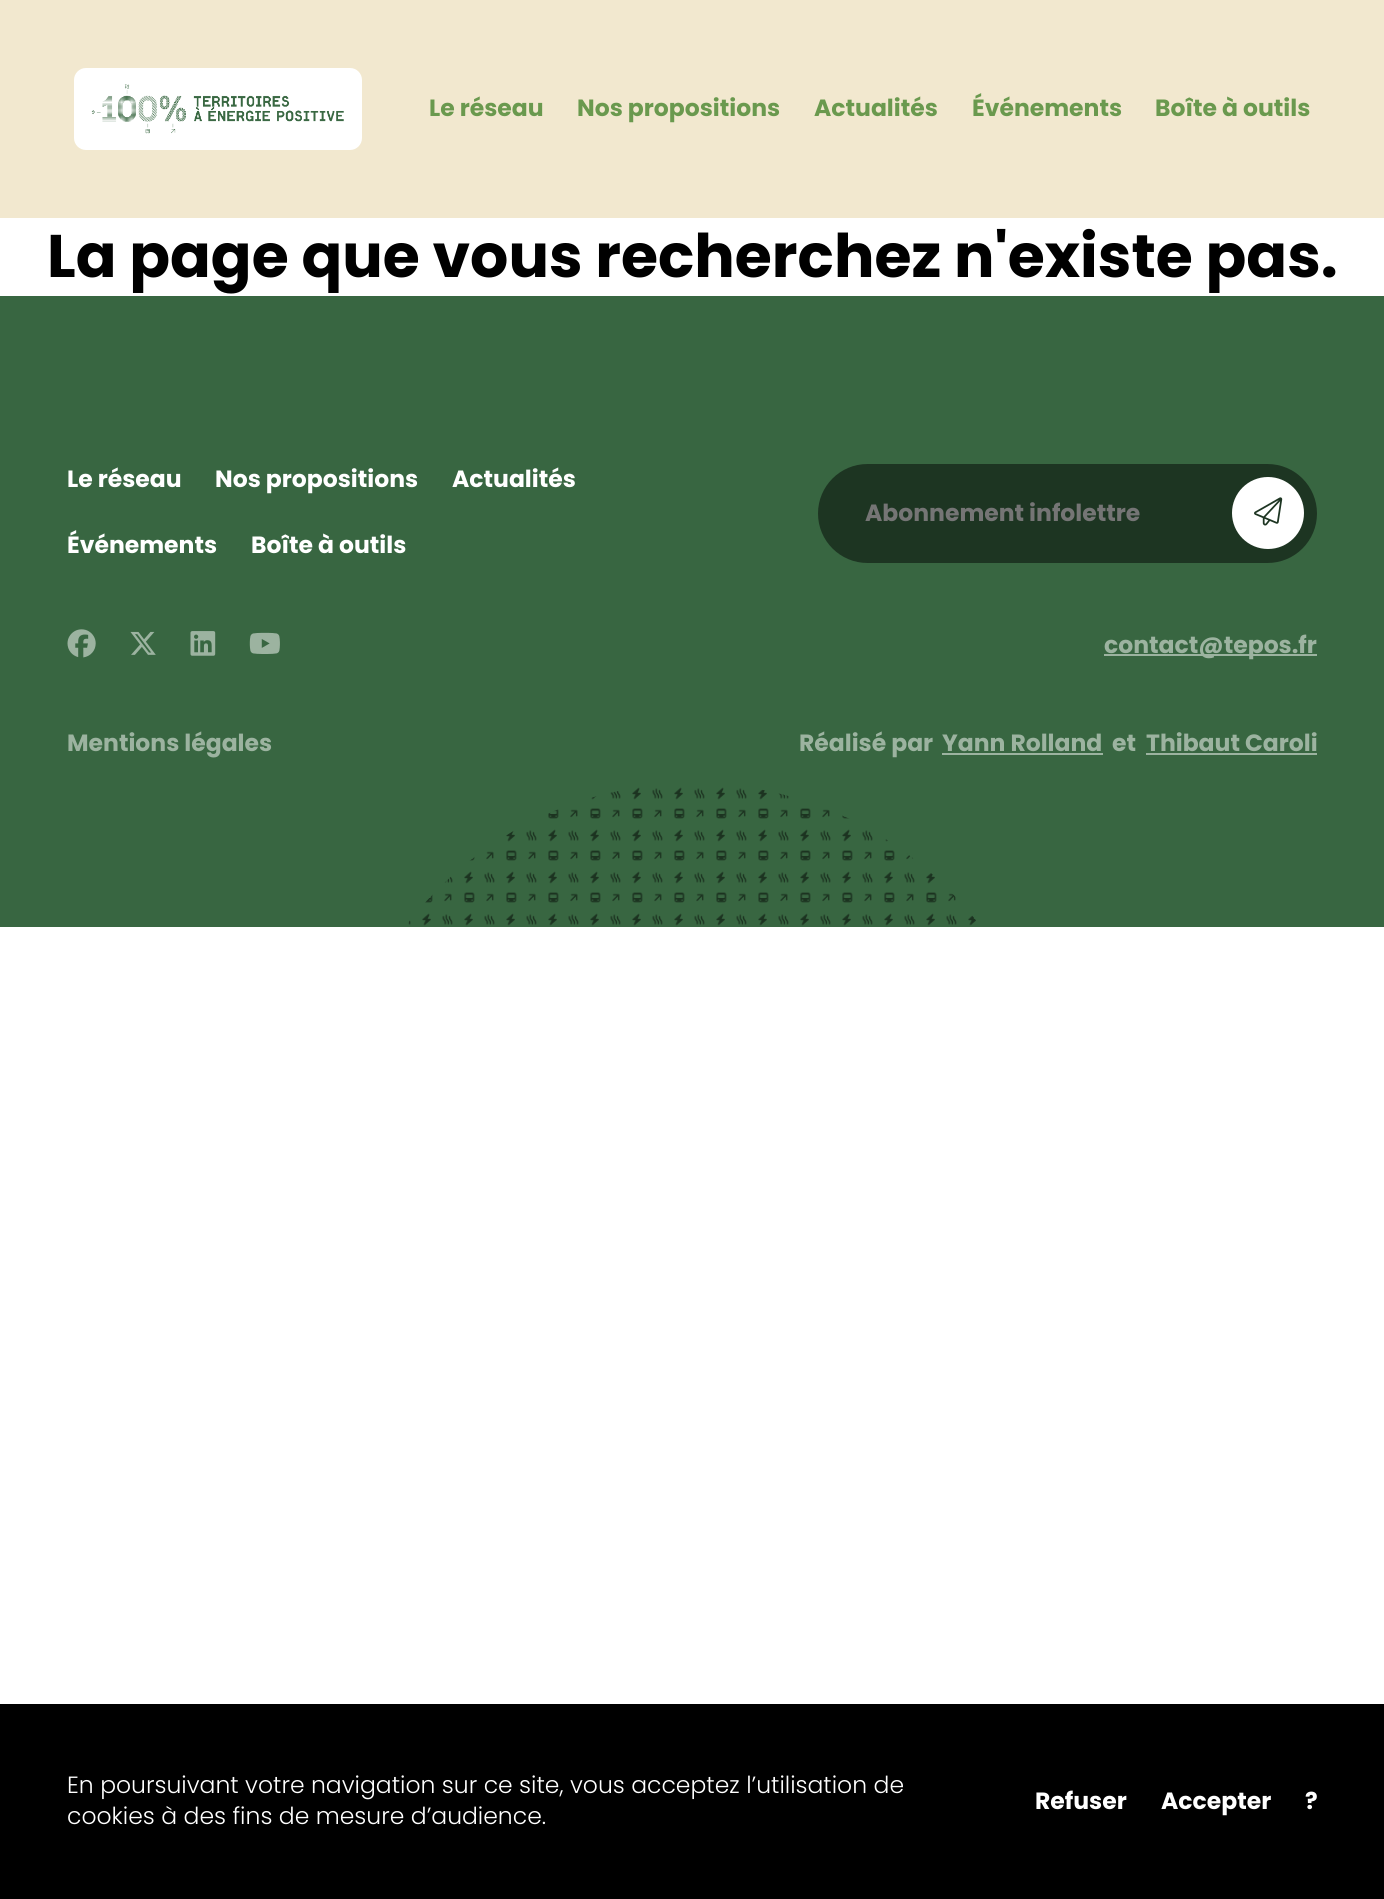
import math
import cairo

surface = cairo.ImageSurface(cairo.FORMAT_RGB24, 1384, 1899)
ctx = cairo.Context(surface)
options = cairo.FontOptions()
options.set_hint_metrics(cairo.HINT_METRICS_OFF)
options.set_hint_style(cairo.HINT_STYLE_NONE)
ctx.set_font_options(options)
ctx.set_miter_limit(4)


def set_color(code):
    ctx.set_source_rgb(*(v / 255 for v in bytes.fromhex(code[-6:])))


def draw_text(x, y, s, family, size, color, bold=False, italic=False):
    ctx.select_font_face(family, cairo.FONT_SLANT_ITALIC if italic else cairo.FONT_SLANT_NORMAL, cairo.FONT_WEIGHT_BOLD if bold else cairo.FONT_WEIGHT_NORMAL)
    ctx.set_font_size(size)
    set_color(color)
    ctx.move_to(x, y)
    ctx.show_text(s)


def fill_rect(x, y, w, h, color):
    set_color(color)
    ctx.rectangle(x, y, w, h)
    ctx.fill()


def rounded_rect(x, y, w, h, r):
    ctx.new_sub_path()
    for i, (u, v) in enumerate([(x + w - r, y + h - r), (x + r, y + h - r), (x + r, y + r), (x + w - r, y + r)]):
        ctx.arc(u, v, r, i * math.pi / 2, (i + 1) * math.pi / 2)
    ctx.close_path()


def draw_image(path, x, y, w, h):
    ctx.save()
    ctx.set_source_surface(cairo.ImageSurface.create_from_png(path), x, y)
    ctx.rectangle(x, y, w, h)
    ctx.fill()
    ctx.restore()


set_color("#ffffff")
ctx.paint()
fill_rect(0, 0, 1384, 218, "#f2e8cf")
set_color("#ffffff")
rounded_rect(74, 68, 288, 82, 12)
ctx.fill()
draw_image("assets/img1.png", 91, 84, 253, 50)
draw_text(429, 116, "Le réseau", "Poppins", 23.5, "#6a994e", bold=True)
draw_text(577, 116, "Nos propositions", "Poppins", 23.5, "#6a994e", bold=True)
draw_text(814, 116, "Actualités", "Poppins", 23.5, "#6a994e", bold=True)
draw_text(972, 116, "Événements", "Poppins", 23.5, "#6a994e", bold=True)
draw_text(1155, 116, "Boîte à outils", "Poppins", 23.5, "#6a994e", bold=True)
draw_text(47, 277, "La page que vous recherchez n'existe pas.", "Poppins", 60.1, "#000000", bold=True)
fill_rect(0, 296, 1384, 631, "#386641")
draw_text(67, 487, "Le réseau", "Poppins", 23.5, "#ffffff", bold=True)
draw_text(215, 487, "Nos propositions", "Poppins", 23.5, "#ffffff", bold=True)
draw_text(452, 487, "Actualités", "Poppins", 23.5, "#ffffff", bold=True)
draw_text(67, 553, "Événements", "Poppins", 23.5, "#ffffff", bold=True)
draw_text(251, 553, "Boîte à outils", "Poppins", 23.5, "#ffffff", bold=True)
set_color("#1d3522")
rounded_rect(818, 464, 499, 99, 49.5)
ctx.fill()
draw_text(865, 521, "Abonnement infolettre", "Poppins", 23.5, "#757575", bold=True)
set_color("#ffffff")
ctx.new_path()
ctx.arc(1268, 513, 36, 0, 2 * math.pi)
ctx.fill()
draw_image("assets/img2.png", 1254, 497, 29, 29)
draw_image("assets/img3.png", 67, 629, 29, 29)
draw_image("assets/img4.png", 130, 631, 26, 24)
draw_image("assets/img5.png", 190, 631, 26, 25)
draw_image("assets/img6.png", 249, 632, 31, 22)
fill_rect(1104, 654, 213, 2, "#9cb3a0")
draw_text(1104, 653, "contact@tepos.fr", "Poppins", 23.5, "#9cb3a0", bold=True)
draw_text(67, 751, "Mentions légales", "Poppins", 23.5, "#9cb3a0", bold=True)
draw_text(799, 751, "Réalisé par", "Poppins", 23.5, "#9cb3a0", bold=True)
draw_text(942, 751, "Yann Rolland", "Poppins", 23.5, "#9cb3a0", bold=True)
fill_rect(942, 753, 161, 2, "#9cb3a0")
draw_text(1112, 751, "et", "Poppins", 23.5, "#9cb3a0", bold=True)
draw_text(1146, 751, "Thibaut Caroli", "Poppins", 23.5, "#9cb3a0", bold=True)
fill_rect(1146, 753, 171, 2, "#9cb3a0")
draw_image("assets/img7.png", 408, 787, 568, 139)
fill_rect(0, 1704, 1384, 195, "#000000")
draw_text(67, 1793, "En poursuivant votre navigation sur ce site, vous acceptez l’utilisation de", "Poppins Light", 23.5, "#ffffff")
draw_text(67, 1824, "cookies à des fins de mesure d’audience.", "Poppins Light", 23.5, "#ffffff")
draw_text(1035, 1809, "Refuser", "Poppins", 23.5, "#ffffff", bold=True)
draw_text(1161, 1809, "Accepter", "Poppins", 23.5, "#ffffff", bold=True)
draw_text(1305, 1809, "?", "Poppins", 23.5, "#ffffff", bold=True)
surface.write_to_png("output.png")
